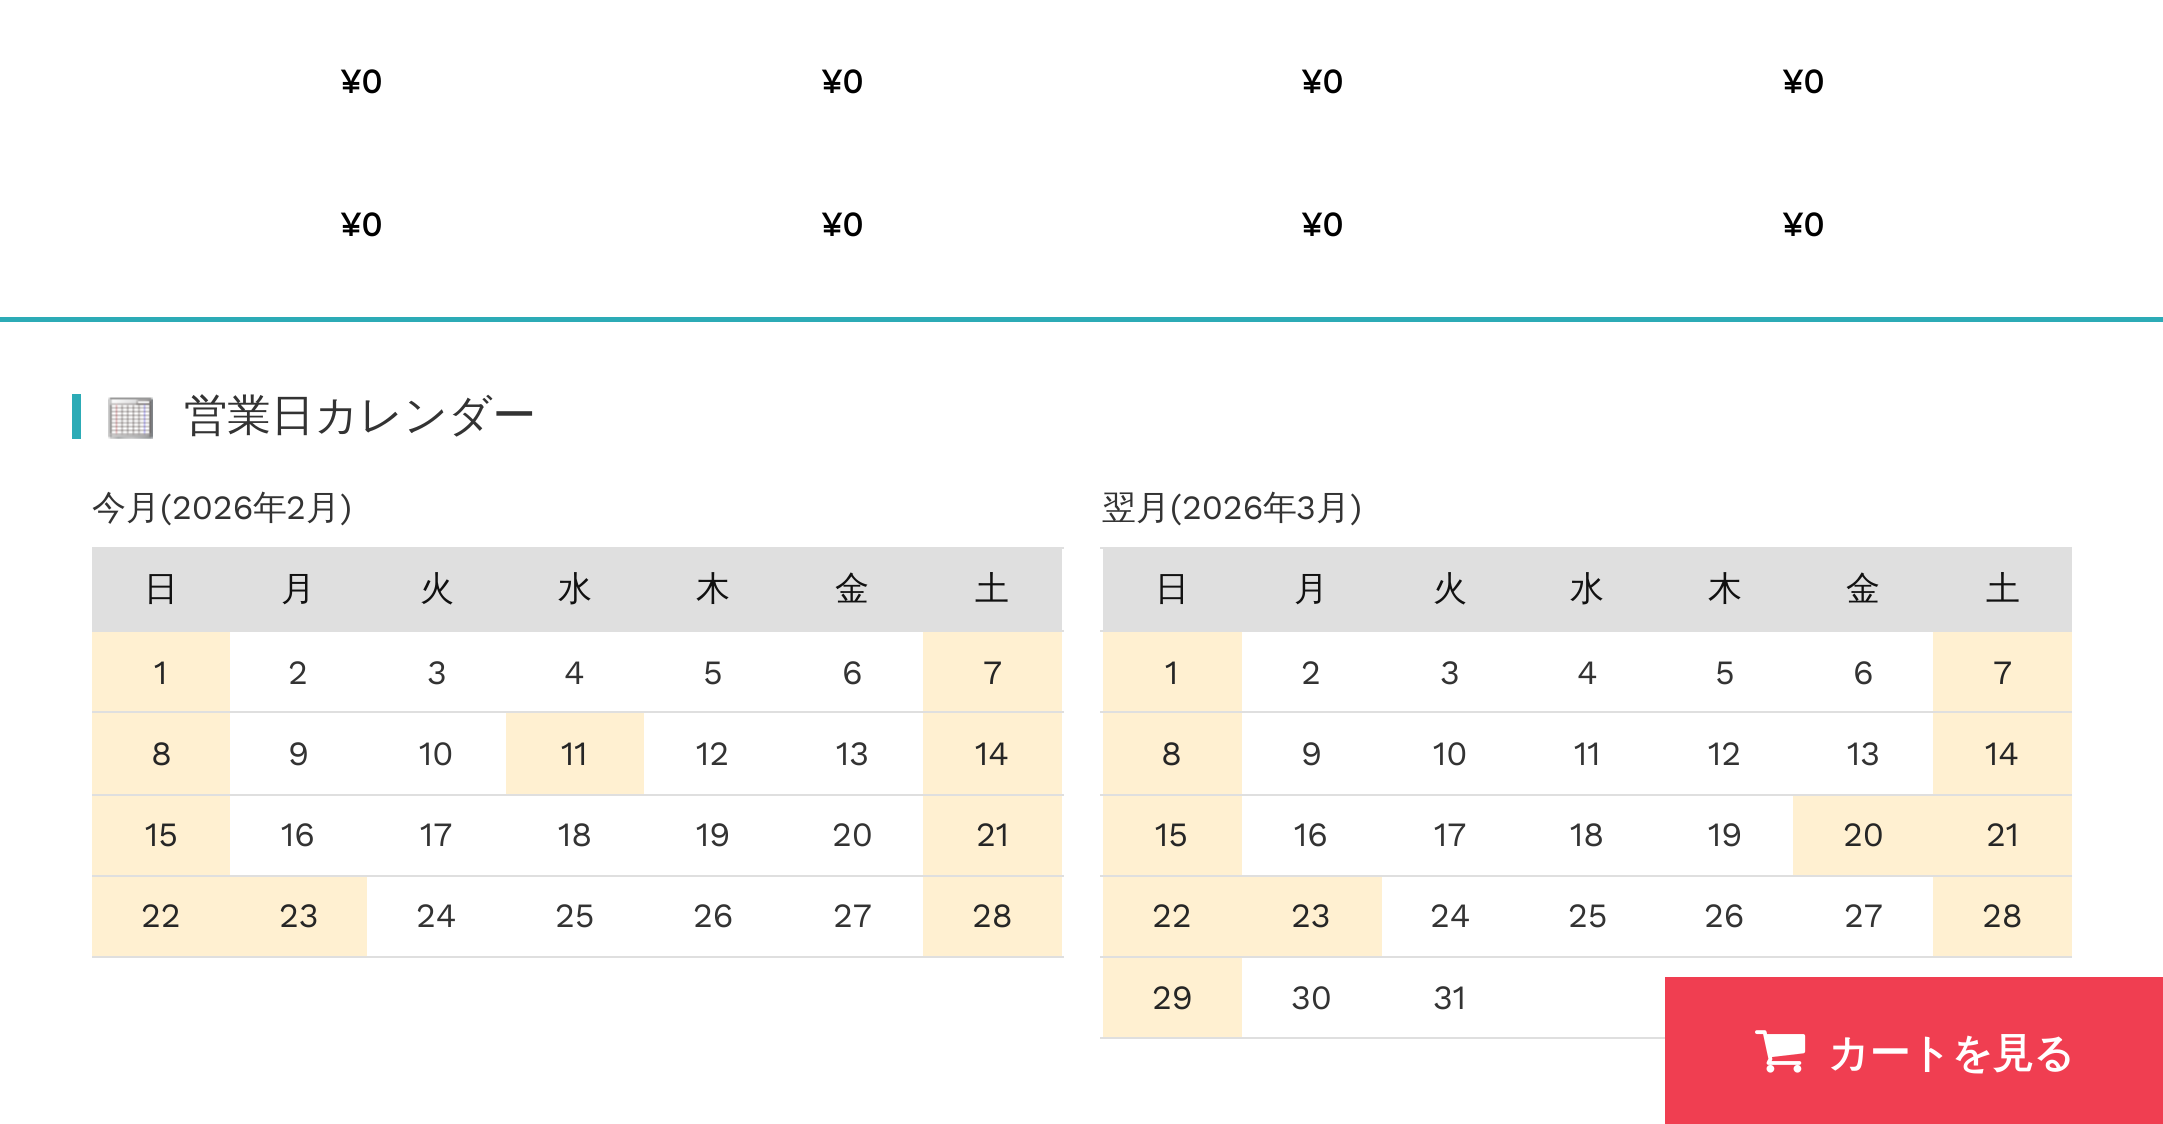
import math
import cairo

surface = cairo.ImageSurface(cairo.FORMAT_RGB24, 2163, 1124)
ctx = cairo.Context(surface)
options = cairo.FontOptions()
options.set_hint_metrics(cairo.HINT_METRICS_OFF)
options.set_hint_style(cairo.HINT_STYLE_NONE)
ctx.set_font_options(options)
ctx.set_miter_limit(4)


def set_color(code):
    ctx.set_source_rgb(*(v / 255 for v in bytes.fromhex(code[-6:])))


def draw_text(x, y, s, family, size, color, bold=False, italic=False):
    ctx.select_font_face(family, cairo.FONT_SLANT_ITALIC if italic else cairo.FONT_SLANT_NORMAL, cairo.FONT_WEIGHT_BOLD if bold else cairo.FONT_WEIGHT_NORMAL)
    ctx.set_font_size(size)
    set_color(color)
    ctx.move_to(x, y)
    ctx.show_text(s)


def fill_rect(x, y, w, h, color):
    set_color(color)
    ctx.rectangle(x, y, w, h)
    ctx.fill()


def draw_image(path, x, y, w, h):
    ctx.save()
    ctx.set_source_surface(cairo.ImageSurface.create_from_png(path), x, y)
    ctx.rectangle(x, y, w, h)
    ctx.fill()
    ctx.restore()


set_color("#ffffff")
ctx.paint()
draw_text(340, 93, "¥0", "Work Sans", 34, "#000000", bold=True)
draw_text(821, 93, "¥0", "Work Sans", 34, "#000000", bold=True)
draw_text(1301, 93, "¥0", "Work Sans", 34, "#000000", bold=True)
draw_text(1782, 93, "¥0", "Work Sans", 34, "#000000", bold=True)
draw_text(340, 236, "¥0", "Work Sans", 34, "#000000", bold=True)
draw_text(821, 236, "¥0", "Work Sans", 34, "#000000", bold=True)
draw_text(1301, 236, "¥0", "Work Sans", 34, "#000000", bold=True)
draw_text(1782, 236, "¥0", "Work Sans", 34, "#000000", bold=True)
fill_rect(0, 317, 2163, 5, "#2cabb6")
fill_rect(72, 394, 9, 45, "#2cabb6")
draw_image("assets/img1.png", 108, 397, 45, 42)
draw_text(184, 430, "営業日カレンダー", "WenQuanYi Zen Hei Medium", 43.5, "#333333")
draw_text(92, 519, "今月", "WenQuanYi Zen Hei Medium", 34, "#333333")
draw_text(160, 519, "(2026", "Work Sans", 34, "#333333")
draw_text(253, 519, "年", "WenQuanYi Zen Hei Medium", 34, "#333333")
draw_text(286, 519, "2", "Work Sans", 34, "#333333")
draw_text(306, 519, "月", "WenQuanYi Zen Hei Medium", 34, "#333333")
draw_text(340, 519, ")", "Work Sans", 34, "#333333")
fill_rect(92, 549, 831, 83, "#dfdfdf")
draw_text(144, 600, "日", "WenQuanYi Zen Hei Medium", 34, "#111111")
draw_text(281, 600, "月", "WenQuanYi Zen Hei Medium", 34, "#111111")
draw_text(420, 600, "火", "WenQuanYi Zen Hei Medium", 34, "#111111")
draw_text(558, 600, "水", "WenQuanYi Zen Hei Medium", 34, "#111111")
draw_text(696, 600, "木", "WenQuanYi Zen Hei Medium", 34, "#111111")
draw_text(835, 600, "金", "WenQuanYi Zen Hei Medium", 34, "#111111")
fill_rect(923, 549, 139, 81, "#dfdfdf")
fill_rect(92, 547, 972, 2, "#dfdfdf")
draw_text(975, 600, "土", "WenQuanYi Zen Hei Medium", 34, "#111111")
fill_rect(92, 632, 138, 79, "#fff0d1")
draw_text(154, 684, "1", "Work Sans", 34, "#262626")
draw_text(288, 684, "2", "Work Sans", 34, "#333333")
draw_text(427, 684, "3", "Work Sans", 34, "#333333")
draw_text(564, 684, "4", "Work Sans", 34, "#333333")
draw_text(703, 684, "5", "Work Sans", 34, "#333333")
draw_text(842, 684, "6", "Work Sans", 34, "#333333")
fill_rect(923, 632, 139, 79, "#fff0d1")
fill_rect(920, 630, 144, 2, "#dfdfdf")
draw_text(983, 684, "7", "Work Sans", 34, "#262626")
fill_rect(92, 713, 138, 81, "#fff0d1")
draw_text(151, 765, "8", "Work Sans", 34, "#262626")
draw_text(288, 765, "9", "Work Sans", 34, "#333333")
draw_text(419, 765, "10", "Work Sans", 34, "#333333")
fill_rect(506, 713, 138, 81, "#fff0d1")
draw_text(561, 765, "11", "Work Sans", 34, "#262626")
draw_text(696, 765, "12", "Work Sans", 34, "#333333")
draw_text(836, 765, "13", "Work Sans", 34, "#333333")
fill_rect(923, 713, 139, 81, "#fff0d1")
fill_rect(92, 711, 972, 2, "#dfdfdf")
draw_text(975, 765, "14", "Work Sans", 34, "#262626")
fill_rect(92, 796, 138, 79, "#fff0d1")
draw_text(145, 846, "15", "Work Sans", 34, "#262626")
draw_text(281, 846, "16", "Work Sans", 34, "#333333")
draw_text(420, 846, "17", "Work Sans", 34, "#333333")
draw_text(558, 846, "18", "Work Sans", 34, "#333333")
draw_text(696, 846, "19", "Work Sans", 34, "#333333")
draw_text(832, 846, "20", "Work Sans", 34, "#333333")
fill_rect(923, 796, 139, 79, "#fff0d1")
fill_rect(92, 794, 972, 2, "#dfdfdf")
draw_text(976, 846, "21", "Work Sans", 34, "#262626")
fill_rect(92, 877, 275, 79, "#fff0d1")
draw_text(141, 927, "22", "Work Sans", 34, "#262626")
draw_text(279, 927, "23", "Work Sans", 34, "#262626")
draw_text(416, 927, "24", "Work Sans", 34, "#333333")
draw_text(555, 927, "25", "Work Sans", 34, "#333333")
draw_text(693, 927, "26", "Work Sans", 34, "#333333")
draw_text(833, 927, "27", "Work Sans", 34, "#333333")
fill_rect(923, 877, 139, 79, "#fff0d1")
fill_rect(92, 875, 972, 2, "#dfdfdf")
fill_rect(92, 956, 972, 2, "#dfdfdf")
draw_text(972, 927, "28", "Work Sans", 34, "#262626")
draw_text(1102, 519, "翌月", "WenQuanYi Zen Hei Medium", 34, "#333333")
draw_text(1170, 519, "(2026", "Work Sans", 34, "#333333")
draw_text(1263, 519, "年", "WenQuanYi Zen Hei Medium", 34, "#333333")
draw_text(1296, 519, "3", "Work Sans", 34, "#333333")
draw_text(1316, 519, "月", "WenQuanYi Zen Hei Medium", 34, "#333333")
draw_text(1350, 519, ")", "Work Sans", 34, "#333333")
fill_rect(1103, 549, 139, 81, "#dfdfdf")
draw_text(1155, 600, "日", "WenQuanYi Zen Hei Medium", 34, "#111111")
fill_rect(1242, 549, 830, 83, "#dfdfdf")
draw_text(1294, 600, "月", "WenQuanYi Zen Hei Medium", 34, "#111111")
draw_text(1433, 600, "火", "WenQuanYi Zen Hei Medium", 34, "#111111")
draw_text(1570, 600, "水", "WenQuanYi Zen Hei Medium", 34, "#111111")
draw_text(1708, 600, "木", "WenQuanYi Zen Hei Medium", 34, "#111111")
draw_text(1846, 600, "金", "WenQuanYi Zen Hei Medium", 34, "#111111")
fill_rect(1100, 547, 972, 2, "#dfdfdf")
draw_text(1986, 600, "土", "WenQuanYi Zen Hei Medium", 34, "#111111")
fill_rect(1103, 632, 139, 79, "#fff0d1")
fill_rect(1100, 630, 142, 2, "#dfdfdf")
draw_text(1165, 684, "1", "Work Sans", 34, "#262626")
draw_text(1301, 684, "2", "Work Sans", 34, "#333333")
draw_text(1440, 684, "3", "Work Sans", 34, "#333333")
draw_text(1577, 684, "4", "Work Sans", 34, "#333333")
draw_text(1715, 684, "5", "Work Sans", 34, "#333333")
draw_text(1853, 684, "6", "Work Sans", 34, "#333333")
fill_rect(1933, 632, 139, 79, "#fff0d1")
draw_text(1993, 684, "7", "Work Sans", 34, "#262626")
fill_rect(1103, 713, 139, 81, "#fff0d1")
draw_text(1161, 765, "8", "Work Sans", 34, "#262626")
draw_text(1301, 765, "9", "Work Sans", 34, "#333333")
draw_text(1433, 765, "10", "Work Sans", 34, "#333333")
draw_text(1574, 765, "11", "Work Sans", 34, "#333333")
draw_text(1708, 765, "12", "Work Sans", 34, "#333333")
draw_text(1847, 765, "13", "Work Sans", 34, "#333333")
fill_rect(1933, 713, 139, 81, "#fff0d1")
fill_rect(1100, 711, 972, 2, "#dfdfdf")
draw_text(1985, 765, "14", "Work Sans", 34, "#262626")
fill_rect(1103, 796, 139, 79, "#fff0d1")
draw_text(1155, 846, "15", "Work Sans", 34, "#262626")
draw_text(1294, 846, "16", "Work Sans", 34, "#333333")
draw_text(1434, 846, "17", "Work Sans", 34, "#333333")
draw_text(1570, 846, "18", "Work Sans", 34, "#333333")
draw_text(1708, 846, "19", "Work Sans", 34, "#333333")
fill_rect(1793, 796, 279, 79, "#fff0d1")
draw_text(1843, 846, "20", "Work Sans", 34, "#262626")
fill_rect(1100, 794, 972, 2, "#dfdfdf")
draw_text(1986, 846, "21", "Work Sans", 34, "#262626")
fill_rect(1103, 877, 279, 79, "#fff0d1")
draw_text(1152, 927, "22", "Work Sans", 34, "#262626")
draw_text(1291, 927, "23", "Work Sans", 34, "#262626")
draw_text(1430, 927, "24", "Work Sans", 34, "#333333")
draw_text(1568, 927, "25", "Work Sans", 34, "#333333")
draw_text(1704, 927, "26", "Work Sans", 34, "#333333")
draw_text(1844, 927, "27", "Work Sans", 34, "#333333")
fill_rect(1933, 877, 139, 79, "#fff0d1")
fill_rect(1100, 875, 972, 2, "#dfdfdf")
draw_text(1982, 927, "28", "Work Sans", 34, "#262626")
fill_rect(1100, 956, 972, 2, "#dfdfdf")
fill_rect(1103, 958, 139, 79, "#fff0d1")
draw_text(1152, 1009, "29", "Work Sans", 34, "#262626")
draw_text(1291, 1009, "30", "Work Sans", 34, "#333333")
draw_text(1433, 1009, "31", "Work Sans", 34, "#333333")
fill_rect(1100, 1037, 565, 2, "#dfdfdf")
fill_rect(1665, 977, 498, 147, "#f03e51")
draw_image("assets/img2.png", 1755, 1030, 51, 43)
draw_text(1828, 1067, "カートを見る", "WenQuanYi Zen Hei", 40.5, "#ffffff", bold=True)
surface.write_to_png("output.png")
